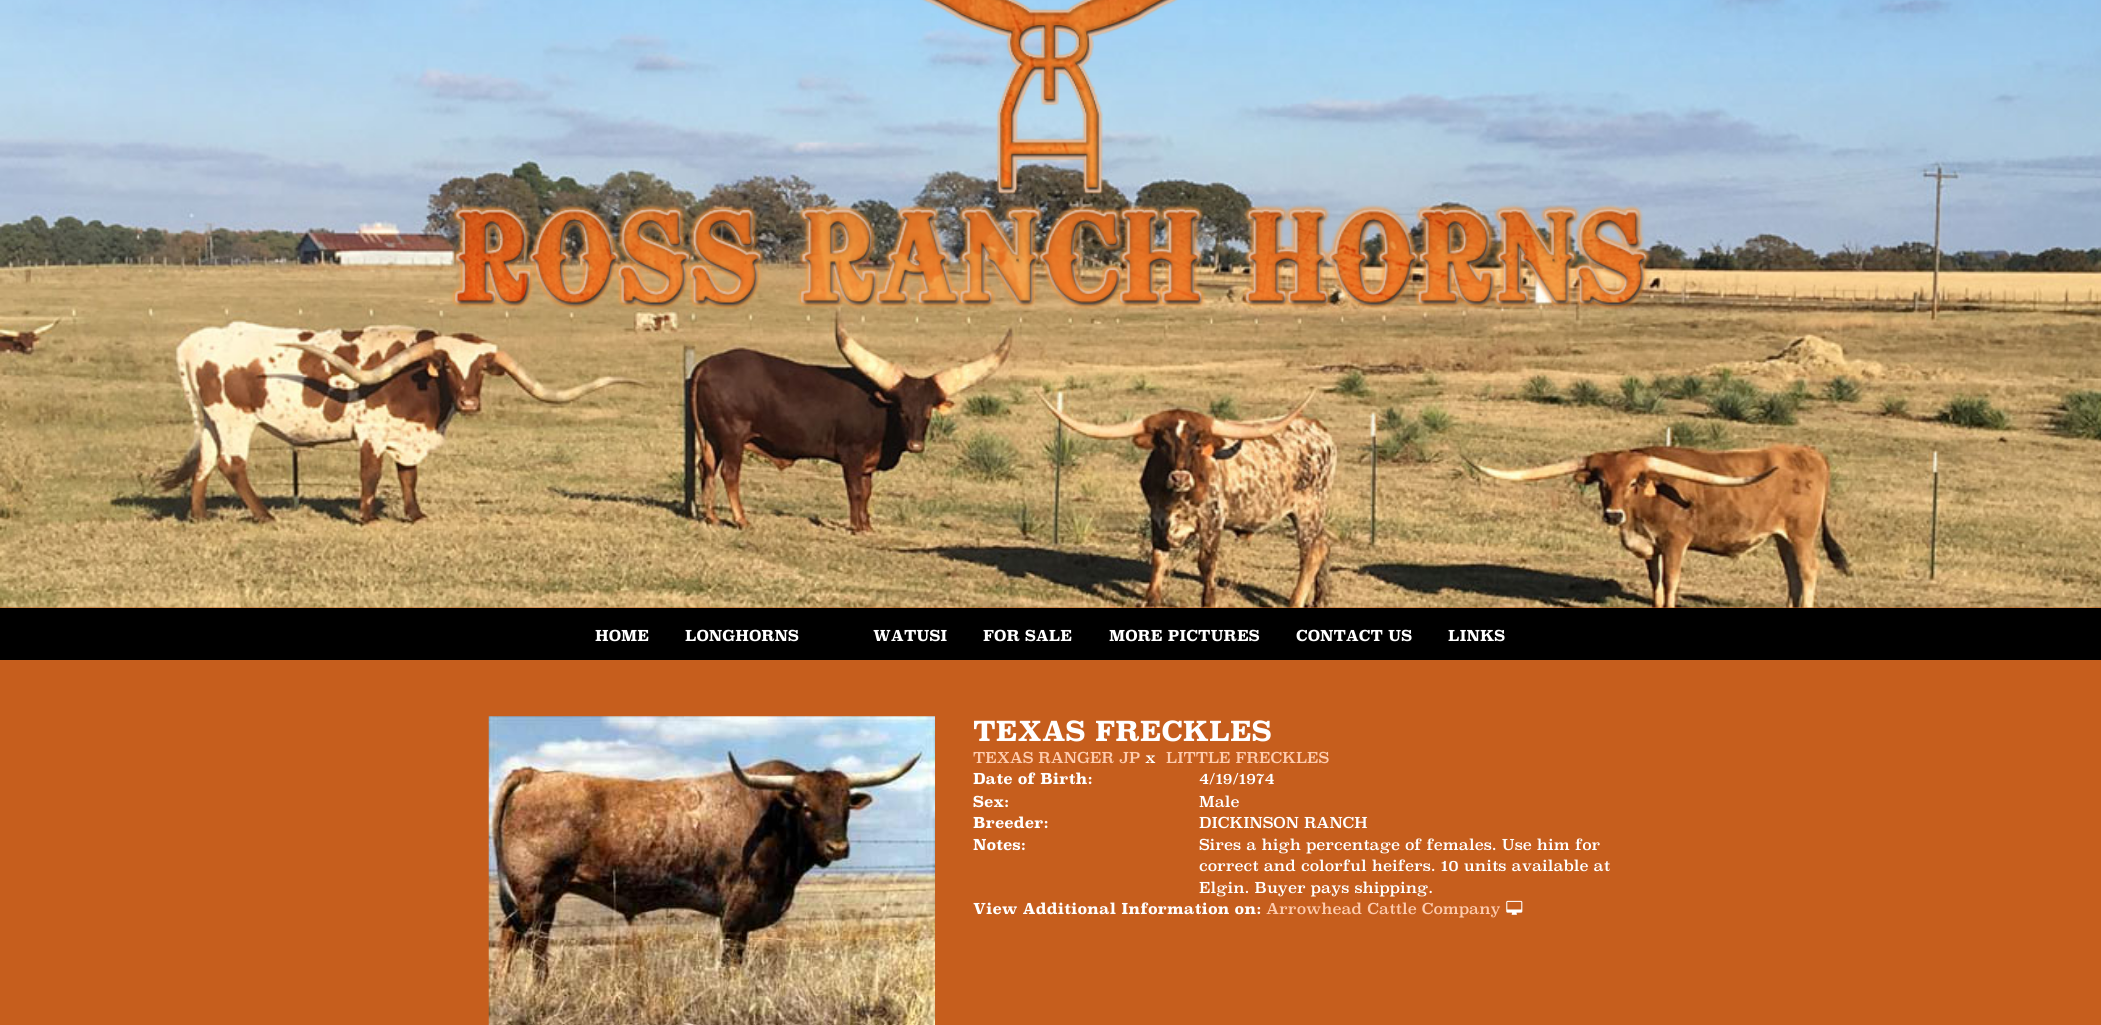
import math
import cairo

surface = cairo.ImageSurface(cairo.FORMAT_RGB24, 2101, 1025)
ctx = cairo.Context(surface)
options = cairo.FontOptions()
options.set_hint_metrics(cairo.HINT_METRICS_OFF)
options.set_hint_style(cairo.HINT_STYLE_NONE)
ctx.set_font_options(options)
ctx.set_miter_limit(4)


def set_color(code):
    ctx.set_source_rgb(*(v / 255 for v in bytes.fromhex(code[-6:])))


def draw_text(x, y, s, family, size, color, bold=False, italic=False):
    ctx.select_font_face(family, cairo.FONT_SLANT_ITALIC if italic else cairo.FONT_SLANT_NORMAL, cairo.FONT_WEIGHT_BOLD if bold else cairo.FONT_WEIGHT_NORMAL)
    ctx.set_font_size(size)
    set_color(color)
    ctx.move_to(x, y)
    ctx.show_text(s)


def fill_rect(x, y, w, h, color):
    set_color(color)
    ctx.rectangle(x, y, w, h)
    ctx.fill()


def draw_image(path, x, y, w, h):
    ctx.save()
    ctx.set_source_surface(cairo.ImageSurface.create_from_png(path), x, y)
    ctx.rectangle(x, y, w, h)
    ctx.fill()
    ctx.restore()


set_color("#c65e1d")
ctx.paint()
draw_image("assets/img1.png", 0, 0, 2101, 608)
draw_image("assets/img2.png", 450, 0, 1201, 309)
fill_rect(0, 608, 2101, 52, "#000000")
draw_text(595, 641, "HOME", "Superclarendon", 15, "#ffffff", bold=True)
draw_text(685, 641, "LONGHORNS", "Superclarendon", 15, "#ffffff", bold=True)
draw_text(873, 641, "WATUSI", "Superclarendon", 15, "#ffffff", bold=True)
draw_text(983, 641, "FOR SALE", "Superclarendon", 15, "#ffffff", bold=True)
draw_text(1109, 641, "MORE PICTURES", "Superclarendon", 15, "#ffffff", bold=True)
draw_text(1296, 641, "CONTACT US", "Superclarendon", 15, "#ffffff", bold=True)
draw_text(1448, 641, "LINKS", "Superclarendon", 15, "#ffffff", bold=True)
draw_image("assets/img3.png", 488, 716, 447, 309)
draw_text(973, 741, "TEXAS FRECKLES", "Superclarendon", 27.5, "#ffffff", bold=True)
draw_text(973, 763, "TEXAS RANGER JP", "Superclarendon", 15, "#ffccae")
draw_text(1145, 763, "x", "Superclarendon", 15, "#ffffff")
draw_text(1166, 763, "LITTLE FRECKLES", "Superclarendon", 15, "#ffccae")
draw_text(973, 784, "Date of Birth:", "Superclarendon", 15, "#ffffff", bold=True)
draw_text(1199, 784, "4/19/1974", "Superclarendon", 15, "#ffffff")
draw_text(973, 807, "Sex:", "Superclarendon", 15, "#ffffff", bold=True)
draw_text(1199, 807, "Male", "Superclarendon", 15, "#ffffff")
draw_text(973, 828, "Breeder:", "Superclarendon", 15, "#ffffff", bold=True)
draw_text(1199, 828, "DICKINSON RANCH", "Superclarendon", 15, "#ffffff")
draw_text(973, 850, "Notes:", "Superclarendon", 15, "#ffffff", bold=True)
draw_text(1199, 850, "Sires a high percentage of females. Use him for", "Superclarendon", 15, "#ffffff")
draw_text(1199, 871, "correct and colorful heifers. 10 units available at", "Superclarendon", 15, "#ffffff")
draw_text(1199, 893, "Elgin. Buyer pays shipping.", "Superclarendon", 15, "#ffffff")
draw_text(973, 914, "View Additional Information on:", "Superclarendon", 15, "#ffffff", bold=True)
draw_text(1266, 914, "Arrowhead Cattle Company", "Superclarendon", 15, "#ffccae")
draw_image("assets/img4.png", 1506, 900, 17, 15)
surface.write_to_png("output.png")
